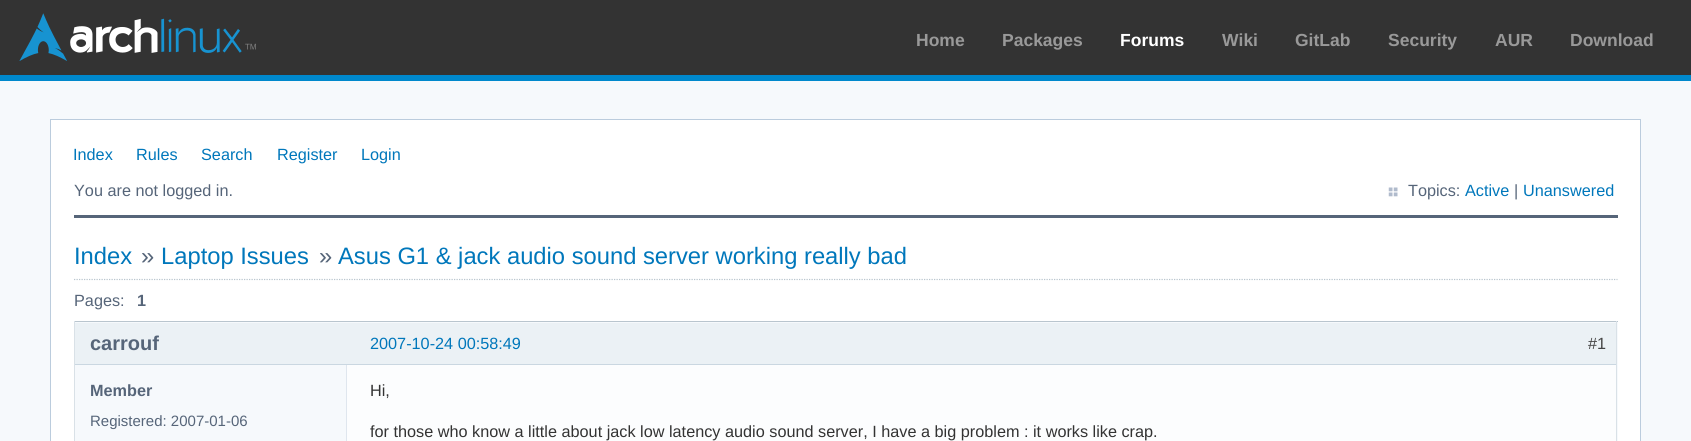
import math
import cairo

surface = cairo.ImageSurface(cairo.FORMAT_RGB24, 1691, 441)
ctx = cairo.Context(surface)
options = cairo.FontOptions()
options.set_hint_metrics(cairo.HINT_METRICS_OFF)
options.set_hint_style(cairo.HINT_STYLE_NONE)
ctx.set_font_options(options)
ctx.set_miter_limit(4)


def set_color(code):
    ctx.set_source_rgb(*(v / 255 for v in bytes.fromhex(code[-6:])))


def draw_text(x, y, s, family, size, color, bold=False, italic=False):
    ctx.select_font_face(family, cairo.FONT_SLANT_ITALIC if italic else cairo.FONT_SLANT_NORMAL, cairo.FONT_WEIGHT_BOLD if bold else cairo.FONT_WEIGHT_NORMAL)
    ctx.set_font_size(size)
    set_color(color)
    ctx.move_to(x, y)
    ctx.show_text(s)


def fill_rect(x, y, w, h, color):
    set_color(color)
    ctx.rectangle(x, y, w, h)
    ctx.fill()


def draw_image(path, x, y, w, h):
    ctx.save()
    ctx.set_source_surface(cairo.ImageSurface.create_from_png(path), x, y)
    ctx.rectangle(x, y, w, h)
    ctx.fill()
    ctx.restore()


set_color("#f6f9fc")
ctx.paint()
fill_rect(0, 0, 1691, 75, "#333333")
fill_rect(0, 75, 1691, 6, "#0088cc")
draw_image("assets/img1.png", 19, 13, 237, 48)
draw_text(916, 46, "Home", "Liberation Sans", 17.5, "#999999", bold=True)
draw_text(1002, 46, "Packages", "Liberation Sans", 17.5, "#999999", bold=True)
draw_text(1120, 46, "Forums", "Liberation Sans", 17.5, "#ffffff", bold=True)
draw_text(1222, 46, "Wiki", "Liberation Sans", 17.5, "#999999", bold=True)
draw_text(1295, 46, "GitLab", "Liberation Sans", 17.5, "#999999", bold=True)
draw_text(1388, 46, "Security", "Liberation Sans", 17.5, "#999999", bold=True)
draw_text(1495, 46, "AUR", "Liberation Sans", 17.5, "#999999", bold=True)
draw_text(1570, 46, "Download", "Liberation Sans", 17.5, "#999999", bold=True)
set_color("#ffffff")
ctx.rectangle(50.5, 119.5, 1590, 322)
ctx.fill_preserve()
set_color("#bbccdd")
ctx.set_line_width(1)
ctx.stroke()
draw_text(73, 160, "Index", "Liberation Sans", 16.25, "#0077bb")
draw_text(136, 160, "Rules", "Liberation Sans", 16.25, "#0077bb")
draw_text(201, 160, "Search", "Liberation Sans", 16.25, "#0077bb")
draw_text(277, 160, "Register", "Liberation Sans", 16.25, "#0077bb")
draw_text(361, 160, "Login", "Liberation Sans", 16.25, "#0077bb")
draw_text(74, 196, "You are not logged in.", "Liberation Sans", 16.25, "#566579")
draw_image("assets/img2.png", 1388, 187, 10, 10)
draw_text(1408, 196, "Topics:", "Liberation Sans", 16.25, "#566579")
draw_text(1465, 196, "Active", "Liberation Sans", 16.25, "#0077bb")
draw_text(1514, 196, "|", "Liberation Sans", 16.25, "#566579")
draw_text(1523, 196, "Unanswered", "Liberation Sans", 16.25, "#0077bb")
fill_rect(74, 215, 1544, 3, "#566579")
draw_text(74, 264, "Index", "Liberation Sans", 23.75, "#0077bb")
draw_text(141, 264, "»", "Liberation Sans", 23.75, "#566579")
draw_text(161, 264, "Laptop Issues", "Liberation Sans", 23.75, "#0077bb")
draw_text(319, 264, "»", "Liberation Sans", 23.75, "#566579")
draw_text(338, 264, "Asus G1 & jack audio sound server working really bad", "Liberation Sans", 23.75, "#0077bb")
ctx.new_path()
ctx.move_to(74, 279.5)
ctx.line_to(1617.5, 279.5)
set_color("#b9c5ce")
ctx.set_line_width(1.2)
ctx.set_dash([1.25, 1.25])
ctx.stroke()
draw_text(74, 306, "Pages:", "Liberation Sans", 16.25, "#566579")
draw_text(137, 306, "1", "Liberation Sans", 16.25, "#566579", bold=True)
fill_rect(75, 322, 1543, 119, "#f6f9fc")
fill_rect(74, 321, 1544, 1, "#b9c5ce")
fill_rect(1616, 321, 1, 120, "#d9e1e7")
fill_rect(74, 321, 1, 120, "#d9e1e7")
fill_rect(347, 365, 1269, 76, "#fcfdfe")
fill_rect(346, 365, 1, 76, "#dfe6ee")
fill_rect(75, 323, 1541, 41, "#ebf1f5")
draw_text(90, 350, "carrouf", "Liberation Sans", 20, "#566579", bold=True)
draw_text(90, 396, "Member", "Liberation Sans", 16.25, "#566579", bold=True)
draw_text(90, 426, "Registered: 2007-01-06", "Liberation Sans", 15, "#566579")
draw_text(370, 396, "Hi,", "Liberation Sans", 16.25, "#333333")
draw_text(370, 437, "for those who know a little about jack low latency audio sound server, I have a big problem : it works like crap.", "Liberation Sans", 16.25, "#333333")
fill_rect(75, 364, 1541, 1, "#cad7e1")
draw_text(370, 349, "2007-10-24 00:58:49", "Liberation Sans", 16.25, "#0077bb")
draw_text(1588, 349, "#1", "Liberation Sans", 16.25, "#444444")
surface.write_to_png("output.png")
